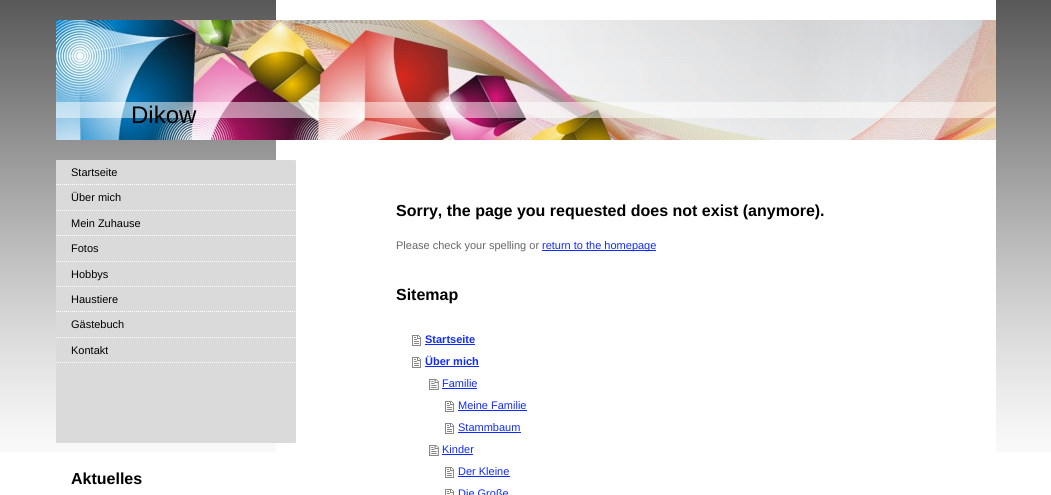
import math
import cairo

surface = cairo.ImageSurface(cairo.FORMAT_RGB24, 1051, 495)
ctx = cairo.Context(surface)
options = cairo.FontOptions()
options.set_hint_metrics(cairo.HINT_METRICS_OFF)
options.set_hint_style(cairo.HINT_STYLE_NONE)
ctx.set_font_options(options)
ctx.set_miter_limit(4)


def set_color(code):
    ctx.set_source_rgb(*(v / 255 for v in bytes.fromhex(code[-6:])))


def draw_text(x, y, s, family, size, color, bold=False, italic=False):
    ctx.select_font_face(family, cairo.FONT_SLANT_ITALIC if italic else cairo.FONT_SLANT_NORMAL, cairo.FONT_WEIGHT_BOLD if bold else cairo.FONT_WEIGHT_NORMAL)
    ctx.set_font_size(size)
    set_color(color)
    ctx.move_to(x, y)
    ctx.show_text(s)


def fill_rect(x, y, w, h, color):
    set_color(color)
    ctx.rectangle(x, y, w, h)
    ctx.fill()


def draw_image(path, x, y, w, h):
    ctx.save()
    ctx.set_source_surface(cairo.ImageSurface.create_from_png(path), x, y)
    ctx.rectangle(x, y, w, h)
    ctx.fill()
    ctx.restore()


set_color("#ffffff")
ctx.paint()
draw_image("assets/img1.png", 0, 0, 1051, 452)
fill_rect(276, 0, 720, 452, "#ffffff")
draw_image("assets/img2.png", 56, 20, 940, 120)
ctx.set_source_rgba(1, 1, 1, 0.5)
ctx.rectangle(56, 102, 940, 16)
ctx.fill()
draw_text(131, 123, "Dikow", "Liberation Sans", 24, "#000000")
fill_rect(56, 160, 240, 283, "#dadada")
fill_rect(293, 440, 3, 3, "#dddddd")
fill_rect(293, 160, 3, 3, "#dddddd")
draw_image("assets/img3.png", 56, 184, 239, 1)
draw_text(71, 176, "Startseite", "Liberation Sans", 11, "#000000")
draw_image("assets/img3.png", 56, 210, 239, 1)
draw_text(71, 201, "Über mich", "Liberation Sans", 11, "#000000")
draw_image("assets/img3.png", 56, 235, 239, 1)
draw_text(71, 227, "Mein Zuhause", "Liberation Sans", 11, "#000000")
draw_image("assets/img3.png", 56, 261, 239, 1)
draw_text(71, 252, "Fotos", "Liberation Sans", 11, "#000000")
draw_image("assets/img3.png", 56, 286, 239, 1)
draw_text(71, 278, "Hobbys", "Liberation Sans", 11, "#000000")
draw_image("assets/img3.png", 56, 311, 239, 1)
draw_text(71, 303, "Haustiere", "Liberation Sans", 11, "#000000")
draw_image("assets/img3.png", 56, 337, 239, 1)
draw_text(71, 328, "Gästebuch", "Liberation Sans", 11, "#000000")
draw_image("assets/img3.png", 56, 362, 239, 1)
draw_text(71, 354, "Kontakt", "Liberation Sans", 11, "#000000")
draw_text(71, 484, "Aktuelles", "Liberation Sans", 16, "#000000", bold=True)
draw_text(396, 216, "Sorry, the page you requested does not exist (anymore).", "Liberation Sans", 16, "#000000", bold=True)
draw_text(396, 249, "Please check your spelling or", "Liberation Sans", 11, "#666666")
fill_rect(542, 250, 114, 1, "#102bff")
draw_text(542, 249, "return to the homepage", "Liberation Sans", 11, "#102bff")
draw_text(396, 300, "Sitemap", "Liberation Sans", 16, "#000000", bold=True)
draw_image("assets/img4.png", 412, 335, 9, 11)
draw_text(425, 343, "Startseite", "Liberation Sans", 11, "#102bff", bold=True)
fill_rect(425, 344, 50, 1, "#102bff")
draw_image("assets/img4.png", 412, 357, 9, 11)
draw_text(425, 365, "Über mich", "Liberation Sans", 11, "#102bff", bold=True)
fill_rect(425, 366, 54, 1, "#102bff")
draw_image("assets/img5.png", 429, 379, 10, 11)
draw_text(442, 387, "Familie", "Liberation Sans", 11, "#102bff")
fill_rect(442, 388, 35, 1, "#102bff")
draw_image("assets/img4.png", 445, 401, 9, 11)
draw_text(458, 409, "Meine Familie", "Liberation Sans", 11, "#102bff")
fill_rect(458, 410, 69, 1, "#102bff")
draw_image("assets/img4.png", 445, 423, 9, 11)
draw_text(458, 431, "Stammbaum", "Liberation Sans", 11, "#102bff")
fill_rect(458, 432, 63, 1, "#102bff")
draw_image("assets/img5.png", 429, 445, 10, 11)
draw_text(442, 453, "Kinder", "Liberation Sans", 11, "#102bff")
fill_rect(442, 454, 31, 1, "#102bff")
draw_image("assets/img4.png", 445, 467, 9, 11)
draw_text(458, 475, "Der Kleine", "Liberation Sans", 11, "#102bff")
fill_rect(458, 476, 52, 1, "#102bff")
draw_image("assets/img6.png", 445, 489, 9, 6)
draw_text(458, 497, "Die Große", "Liberation Sans", 11, "#102bff")
surface.write_to_png("output.png")
